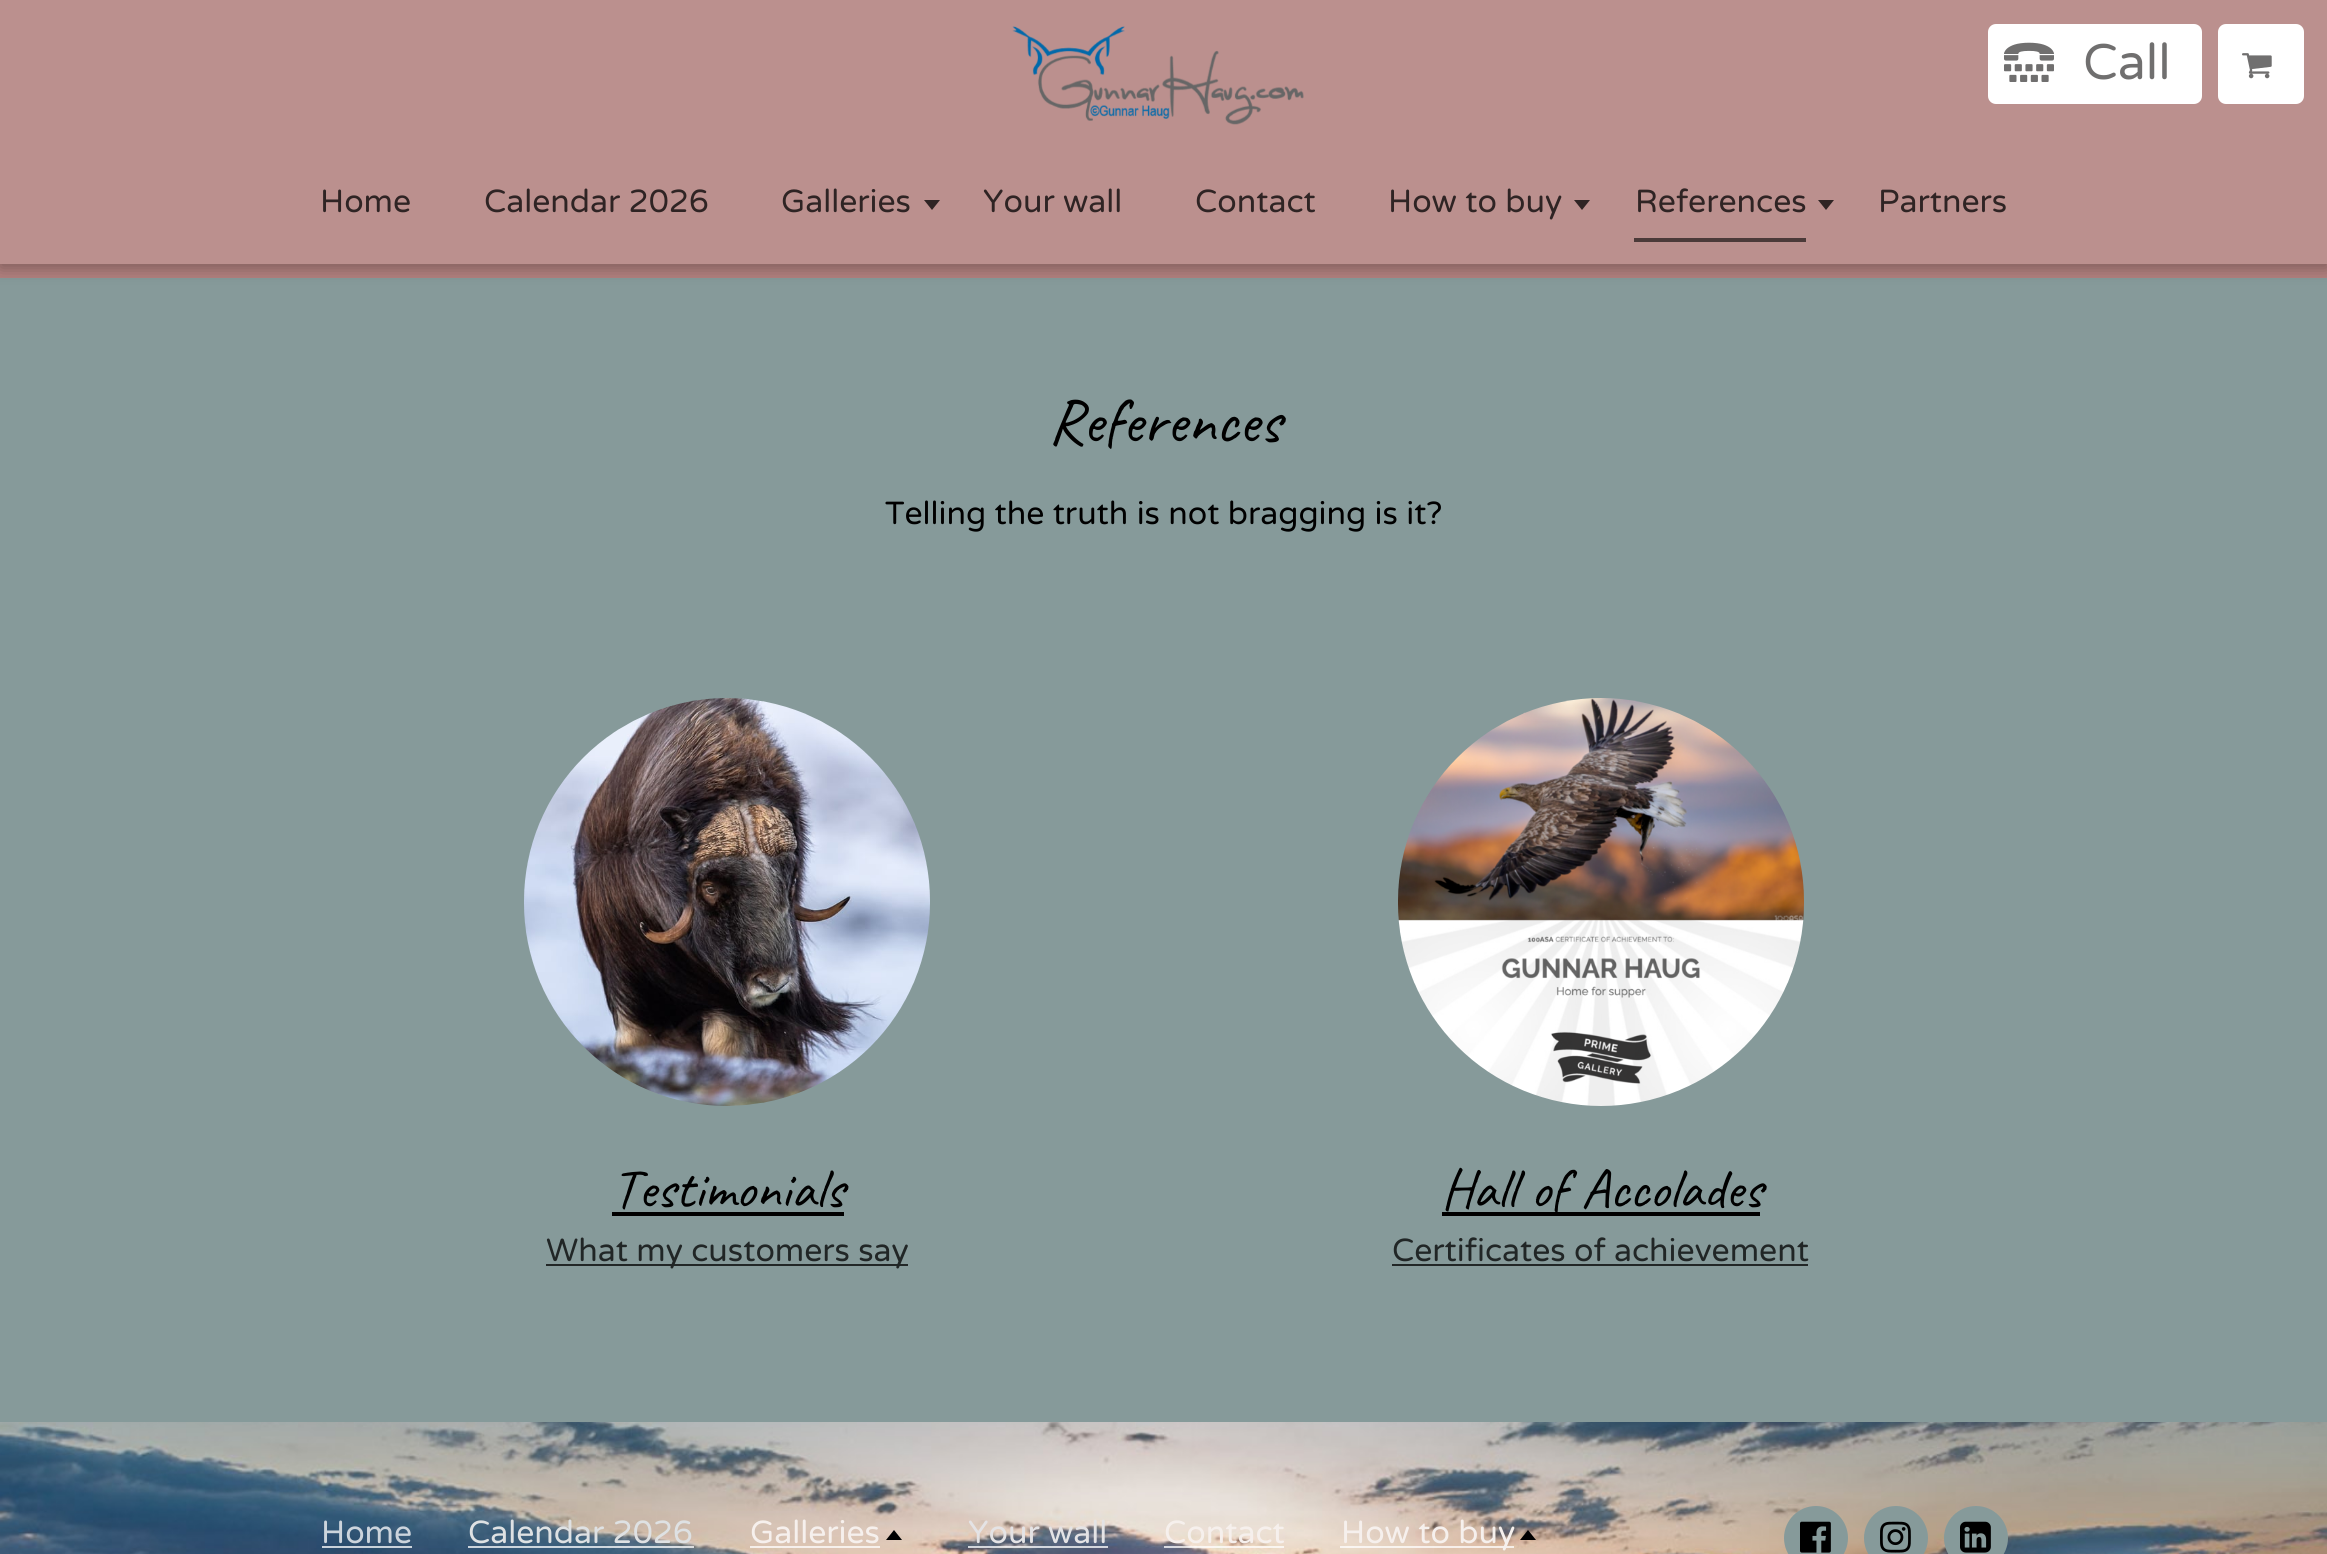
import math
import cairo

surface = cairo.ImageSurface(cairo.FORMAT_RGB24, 2327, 1554)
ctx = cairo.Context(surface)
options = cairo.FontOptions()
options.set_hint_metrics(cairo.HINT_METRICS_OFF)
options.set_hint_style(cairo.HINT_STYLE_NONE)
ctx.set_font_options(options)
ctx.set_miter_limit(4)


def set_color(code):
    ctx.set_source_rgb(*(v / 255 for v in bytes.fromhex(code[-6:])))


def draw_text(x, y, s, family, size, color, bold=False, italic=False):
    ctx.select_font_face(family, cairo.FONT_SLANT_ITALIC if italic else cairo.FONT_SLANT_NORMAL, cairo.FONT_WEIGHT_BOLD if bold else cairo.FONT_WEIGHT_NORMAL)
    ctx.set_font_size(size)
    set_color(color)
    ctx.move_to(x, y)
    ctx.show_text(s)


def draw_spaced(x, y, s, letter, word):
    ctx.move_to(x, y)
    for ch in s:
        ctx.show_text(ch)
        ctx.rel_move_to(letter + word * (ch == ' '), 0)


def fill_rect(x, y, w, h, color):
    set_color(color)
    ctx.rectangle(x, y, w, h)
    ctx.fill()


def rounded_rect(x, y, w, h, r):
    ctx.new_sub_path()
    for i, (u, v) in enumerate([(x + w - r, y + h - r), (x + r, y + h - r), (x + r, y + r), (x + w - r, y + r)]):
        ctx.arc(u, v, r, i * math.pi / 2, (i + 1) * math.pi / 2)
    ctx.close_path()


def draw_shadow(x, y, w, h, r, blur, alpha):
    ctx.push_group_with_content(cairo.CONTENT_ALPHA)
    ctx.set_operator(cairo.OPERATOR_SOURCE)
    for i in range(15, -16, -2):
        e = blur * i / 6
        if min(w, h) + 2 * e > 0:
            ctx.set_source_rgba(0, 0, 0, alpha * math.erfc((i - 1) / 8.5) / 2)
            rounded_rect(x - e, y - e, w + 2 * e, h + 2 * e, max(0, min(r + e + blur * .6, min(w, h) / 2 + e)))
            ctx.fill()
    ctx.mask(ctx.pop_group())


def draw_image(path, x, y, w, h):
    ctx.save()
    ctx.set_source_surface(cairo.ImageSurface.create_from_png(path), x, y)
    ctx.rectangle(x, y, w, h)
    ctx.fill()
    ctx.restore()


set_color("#b2817f")
ctx.paint()
fill_rect(0, 278, 2327, 1144, "#869a9a")
set_color("#000000")
draw_shadow(0, 4, 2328, 264, 0, 8, 0.3)
fill_rect(0, 0, 2327, 264, "#bb908e")
draw_image("assets/img1.png", 1012, 26, 292, 99)
set_color("#ffffff")
rounded_rect(1988, 24, 214, 80, 8)
ctx.fill()
draw_image("assets/img2.png", 2004, 42, 50, 40)
draw_text(2083, 79, "Call", "Varela Round", 50, "#706f6f")
set_color("#ffffff")
rounded_rect(2218, 24, 86, 80, 8)
ctx.fill()
draw_image("assets/img3.png", 2242, 53, 30, 26)
draw_text(320, 212, "Home", "Varela Round", 32, "#2f2424")
draw_text(484, 212, "Calendar 2026", "Varela Round", 32, "#2f2424")
draw_text(781, 212, "Galleries", "Varela Round", 32, "#2f2424")
ctx.new_path()
ctx.move_to(924, 200)
ctx.line_to(940, 200)
ctx.line_to(932, 210)
ctx.close_path()
ctx.fill()
draw_text(983, 212, "Your wall", "Varela Round", 32, "#2f2424")
draw_text(1195, 212, "Contact", "Varela Round", 32, "#2f2424")
draw_text(1388, 212, "How to buy", "Varela Round", 32, "#2f2424")
ctx.new_path()
ctx.move_to(1574, 200)
ctx.line_to(1590, 200)
ctx.line_to(1582, 210)
ctx.close_path()
ctx.fill()
draw_text(1635, 212, "References", "Varela Round", 32, "#2f2424")
ctx.new_path()
ctx.move_to(1818, 200)
ctx.line_to(1834, 200)
ctx.line_to(1826, 210)
ctx.close_path()
ctx.fill()
fill_rect(1634, 238, 172, 4, "#4b3a39")
draw_text(1878, 212, "Partners", "Varela Round", 32, "#2f2424")
draw_text(1048, 442, "References", "Caveat", 64, "#000000")
draw_text(885, 524, "Telling the truth is not bragging is it?", "Varela Round", 32, "#000000")
draw_image("assets/img4.png", 524, 698, 406, 408)
draw_text(612, 1207, "Testimonials", "Caveat", 56, "#000000")
fill_rect(612, 1212, 232, 4, "#000000")
fill_rect(546, 1264, 362, 2, "#222727")
draw_text(546, 1261, "What my customers say", "Varela Round", 32, "#212626")
draw_image("assets/img5.png", 1398, 698, 406, 408)
fill_rect(1442, 1212, 318, 4, "#000000")
ctx.select_font_face("Caveat")
ctx.set_font_size(56)
draw_spaced(1441, 1207, "Hall of Accolades", 0, 1)
draw_text(1392, 1261, "Certificates of achievement", "Varela Round", 32, "#212626")
fill_rect(1392, 1264, 416, 2, "#222727")
draw_image("assets/img6.png", 0, 1422, 2327, 132)
draw_text(321, 1543, "Home", "Varela Round", 32, "#ccd4dc")
ctx.set_source_rgba(1, 1, 1, 0.75)
ctx.rectangle(322, 1546, 90, 2)
ctx.fill()
draw_text(468, 1543, "Calendar 2026", "Varela Round", 32, "#dee1e3")
ctx.set_source_rgba(1, 1, 1, 0.75)
ctx.rectangle(468, 1546, 226, 2)
ctx.fill()
draw_text(750, 1543, "Galleries", "Varela Round", 32, "#f6f0ed")
ctx.set_source_rgba(1, 1, 1, 0.75)
ctx.rectangle(750, 1546, 130, 2)
ctx.fill()
set_color("#000000")
ctx.new_path()
ctx.move_to(902, 1540)
ctx.line_to(886, 1540)
ctx.line_to(894, 1530)
ctx.close_path()
ctx.fill()
draw_text(968, 1543, "Your wall", "Varela Round", 32, "#e4e3e5")
ctx.set_source_rgba(1, 1, 1, 0.75)
ctx.rectangle(968, 1546, 140, 2)
ctx.fill()
draw_text(1164, 1543, "Contact", "Varela Round", 32, "#f6f0ed")
ctx.set_source_rgba(1, 1, 1, 0.75)
ctx.rectangle(1164, 1546, 120, 2)
ctx.fill()
ctx.rectangle(1340, 1546, 174, 2)
ctx.fill()
draw_text(1341, 1543, "How to buy", "Varela Round", 32, "#f6f0ed")
set_color("#000000")
ctx.new_path()
ctx.move_to(1536, 1540)
ctx.line_to(1520, 1540)
ctx.line_to(1528, 1530)
ctx.close_path()
ctx.fill()
set_color("#869a9a")
ctx.arc(1816, 1538, 32, 0, 2 * math.pi)
ctx.fill()
draw_image("assets/img7.png", 1800, 1521, 31, 32)
ctx.arc(1896, 1538, 32, 0, 2 * math.pi)
ctx.fill()
draw_image("assets/img8.png", 1880, 1521, 31, 32)
ctx.arc(1976, 1538, 32, 0, 2 * math.pi)
ctx.fill()
draw_image("assets/img9.png", 1960, 1521, 31, 32)
surface.write_to_png("output.png")
